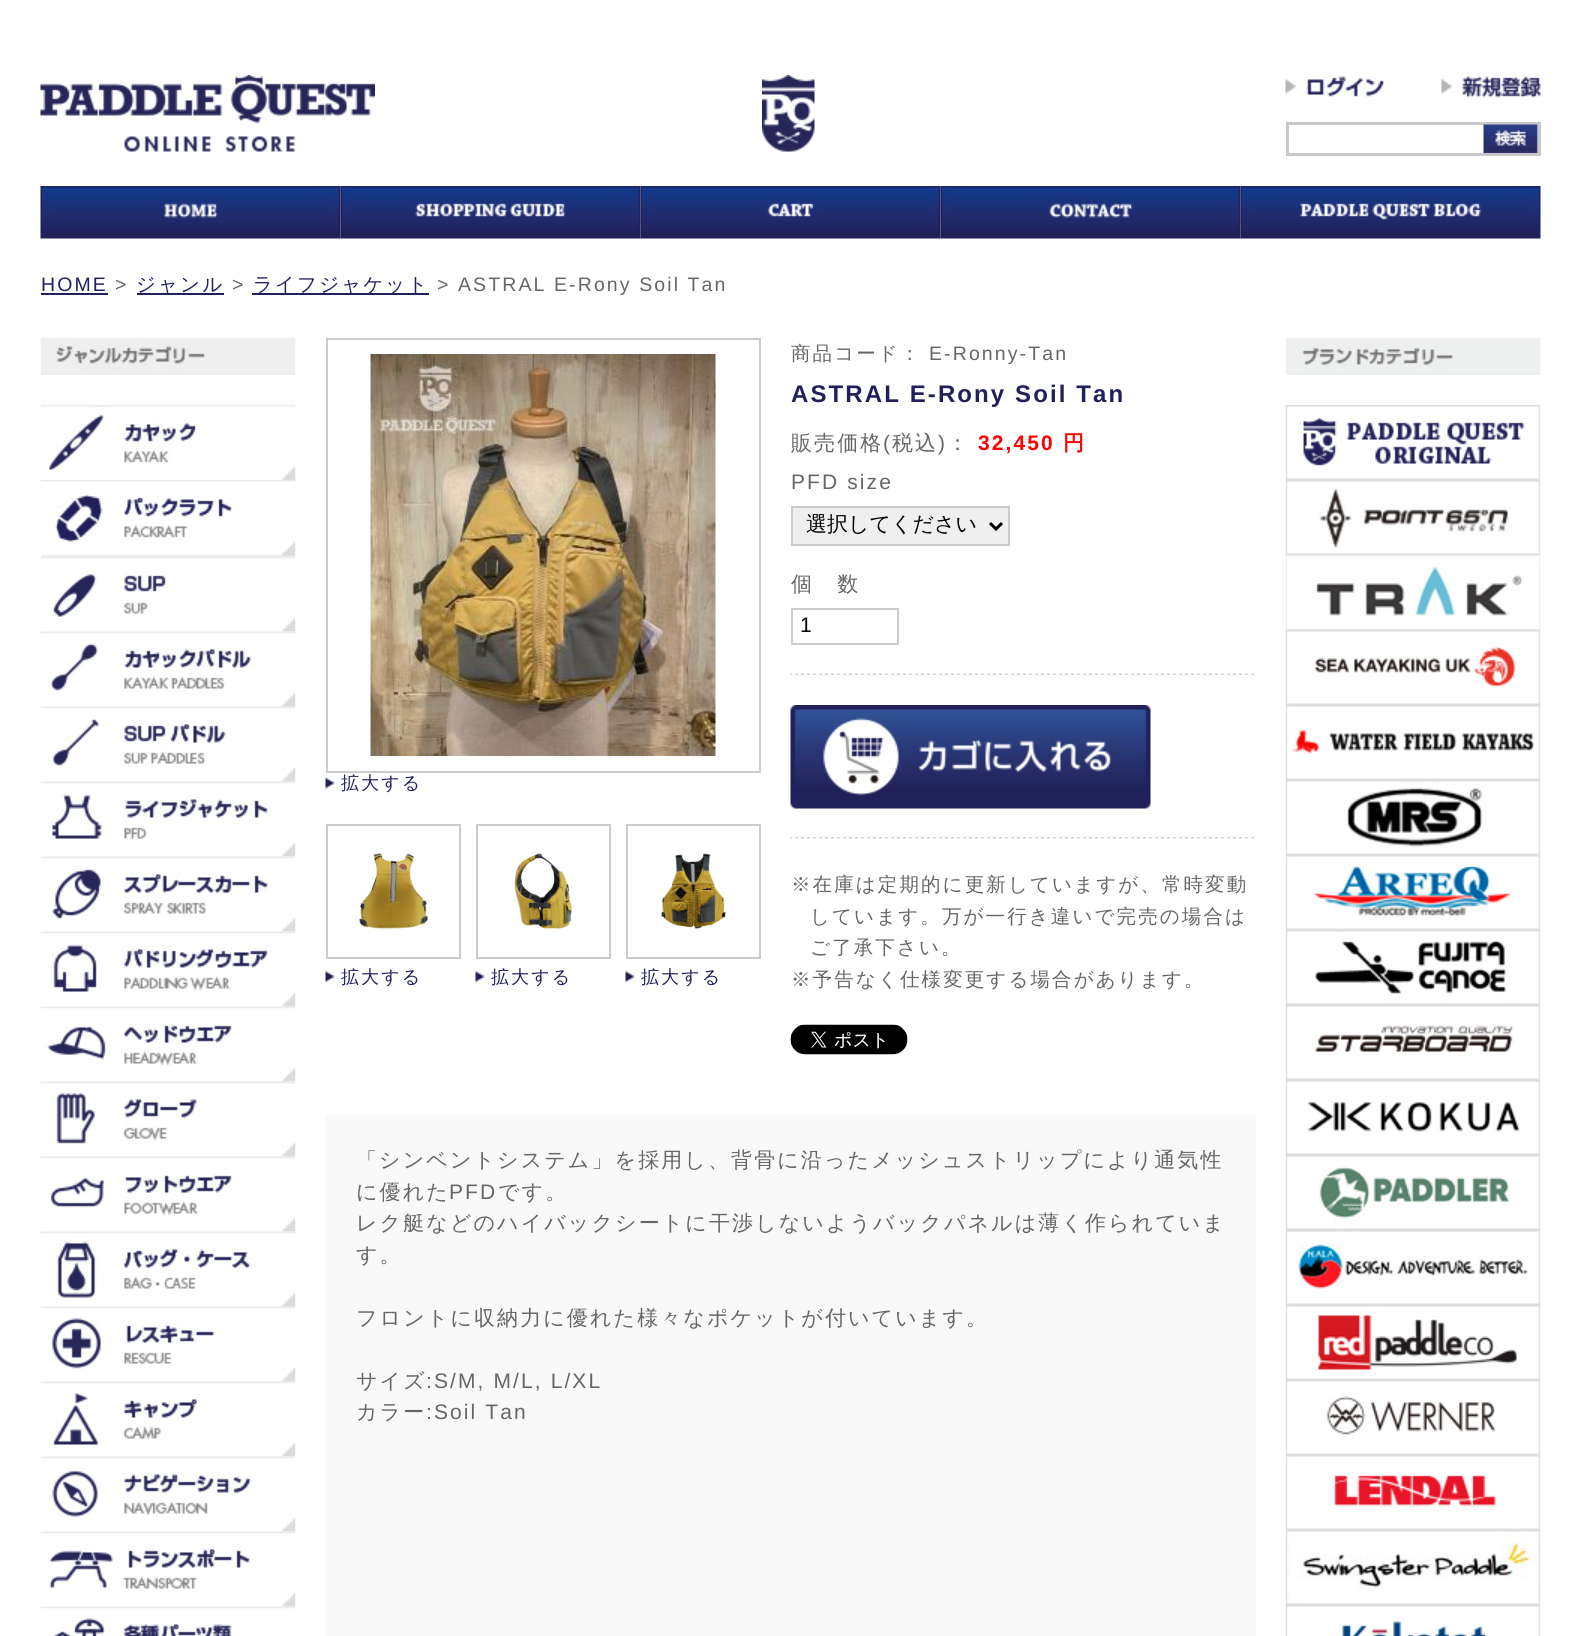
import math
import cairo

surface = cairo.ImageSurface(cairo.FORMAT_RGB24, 1580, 1636)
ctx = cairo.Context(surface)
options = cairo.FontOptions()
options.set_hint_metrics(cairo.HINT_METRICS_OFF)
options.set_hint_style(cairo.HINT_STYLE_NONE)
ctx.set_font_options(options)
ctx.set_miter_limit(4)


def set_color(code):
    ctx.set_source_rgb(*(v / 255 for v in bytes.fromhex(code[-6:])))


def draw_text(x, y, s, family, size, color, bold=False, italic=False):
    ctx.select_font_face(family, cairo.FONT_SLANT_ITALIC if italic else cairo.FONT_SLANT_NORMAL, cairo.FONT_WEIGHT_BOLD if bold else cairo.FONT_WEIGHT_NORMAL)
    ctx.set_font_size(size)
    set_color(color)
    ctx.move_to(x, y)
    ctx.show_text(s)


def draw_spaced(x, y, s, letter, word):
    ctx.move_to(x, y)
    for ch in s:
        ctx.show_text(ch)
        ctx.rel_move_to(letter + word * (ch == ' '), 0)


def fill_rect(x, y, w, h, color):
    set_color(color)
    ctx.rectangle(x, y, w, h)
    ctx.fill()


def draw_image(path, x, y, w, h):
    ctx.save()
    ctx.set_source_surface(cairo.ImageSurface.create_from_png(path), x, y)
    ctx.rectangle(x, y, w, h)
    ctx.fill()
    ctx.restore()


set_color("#ffffff")
ctx.paint()
draw_image("assets/img1.png", 40, 75, 335, 77)
draw_image("assets/img2.png", 762, 75, 53, 77)
draw_image("assets/img3.png", 1285, 76, 100, 21)
draw_image("assets/img4.png", 1441, 75, 100, 24)
ctx.rectangle(1287.5, 123.5, 252, 31)
set_color("#c8c8ca")
ctx.set_line_width(3)
ctx.stroke()
draw_image("assets/img5.png", 1483, 124, 55, 29)
draw_image("assets/img6.png", 40, 186, 301, 53)
draw_image("assets/img7.png", 340, 186, 301, 53)
draw_image("assets/img8.png", 640, 186, 301, 53)
draw_image("assets/img9.png", 940, 186, 301, 53)
draw_image("assets/img10.png", 1240, 186, 301, 53)
ctx.select_font_face("Liberation Sans")
ctx.set_font_size(19.5)
set_color("#22205b")
draw_spaced(41, 291, "HOME", 2.1, 0)
fill_rect(41, 293, 67, 2, "#22205b")
set_color("#666666")
draw_spaced(115, 291, ">", 2.1, 0)
fill_rect(137, 293, 87, 2, "#22205b")
ctx.select_font_face("WenQuanYi Zen Hei Medium")
draw_spaced(136, 291, "ジャンル", 2.1, 0)
ctx.select_font_face("Liberation Sans")
set_color("#666666")
draw_spaced(232, 291, ">", 2.1, 0)
fill_rect(252, 293, 177, 2, "#22205b")
ctx.select_font_face("WenQuanYi Zen Hei Medium")
draw_spaced(253, 291, "ライフジャケット", 2.1, 0)
ctx.select_font_face("Liberation Sans")
set_color("#666666")
draw_spaced(437, 291, "> ASTRAL E-Rony Soil Tan", 2.1, 0)
draw_image("assets/img11.png", 40, 337, 256, 38)
draw_image("assets/img12.png", 40, 405, 256, 75)
draw_image("assets/img13.png", 40, 480, 256, 77)
draw_image("assets/img14.png", 40, 556, 256, 76)
draw_image("assets/img15.png", 40, 631, 256, 76)
draw_image("assets/img16.png", 40, 706, 256, 76)
draw_image("assets/img17.png", 40, 781, 256, 76)
draw_image("assets/img18.png", 40, 856, 256, 76)
draw_image("assets/img19.png", 40, 931, 256, 76)
draw_image("assets/img20.png", 40, 1006, 256, 76)
draw_image("assets/img21.png", 40, 1081, 256, 76)
draw_image("assets/img22.png", 40, 1156, 256, 76)
draw_image("assets/img23.png", 40, 1231, 256, 76)
draw_image("assets/img24.png", 40, 1306, 256, 76)
draw_image("assets/img25.png", 40, 1381, 256, 76)
draw_image("assets/img26.png", 40, 1456, 256, 76)
draw_image("assets/img27.png", 40, 1531, 256, 76)
draw_image("assets/img28.png", 40, 1606, 256, 30)
ctx.rectangle(327, 339, 433, 433)
set_color("#cccccc")
ctx.set_line_width(2)
ctx.stroke()
draw_image("assets/img29.png", 370, 354, 346, 402)
draw_image("assets/img30.png", 325, 777, 10, 12)
ctx.select_font_face("WenQuanYi Zen Hei Medium")
ctx.set_font_size(18)
set_color("#22205b")
draw_spaced(341, 789, "拡大する", 2.1, 0)
fill_rect(326, 824, 135, 2, "#cccccc")
fill_rect(326, 824, 2, 135, "#cccccc")
fill_rect(459, 824, 2, 135, "#cccccc")
fill_rect(326, 957, 135, 2, "#cccccc")
draw_image("assets/img31.png", 359, 853, 69, 77)
draw_image("assets/img32.png", 325, 970, 10, 13)
set_color("#22205b")
draw_spaced(341, 983, "拡大する", 2.1, 0)
fill_rect(476, 824, 135, 2, "#cccccc")
fill_rect(476, 824, 2, 135, "#cccccc")
fill_rect(609, 824, 2, 135, "#cccccc")
fill_rect(476, 957, 135, 2, "#cccccc")
draw_image("assets/img33.png", 514, 853, 58, 78)
draw_image("assets/img32.png", 475, 970, 10, 13)
set_color("#22205b")
draw_spaced(491, 983, "拡大する", 2.1, 0)
fill_rect(626, 824, 135, 2, "#cccccc")
fill_rect(626, 824, 2, 135, "#cccccc")
fill_rect(759, 824, 2, 135, "#cccccc")
fill_rect(626, 957, 135, 2, "#cccccc")
draw_image("assets/img34.png", 661, 853, 65, 76)
draw_image("assets/img35.png", 625, 970, 10, 13)
set_color("#22205b")
draw_spaced(641, 983, "拡大する", 2.1, 0)
ctx.set_font_size(19.5)
set_color("#666666")
draw_spaced(791, 360, "商品コード：", 2.1, 0)
ctx.select_font_face("Liberation Sans")
draw_spaced(929, 360, "E-Ronny-Tan", 2.1, 0)
ctx.select_font_face("Liberation Sans", cairo.FONT_SLANT_NORMAL, cairo.FONT_WEIGHT_BOLD)
ctx.set_font_size(24)
set_color("#22205b")
draw_spaced(791, 402, "ASTRAL E-Rony Soil Tan", 2.1, 0)
ctx.select_font_face("WenQuanYi Zen Hei Medium")
ctx.set_font_size(21)
set_color("#666666")
draw_spaced(791, 450, "販売価格", 2.1, 0)
ctx.select_font_face("Liberation Sans")
draw_spaced(883, 450, "(", 2.1, 0)
ctx.select_font_face("WenQuanYi Zen Hei Medium")
draw_spaced(892, 450, "税込", 2.1, 0)
ctx.select_font_face("Liberation Sans")
draw_spaced(938, 450, ")", 2.1, 0)
ctx.select_font_face("WenQuanYi Zen Hei Medium")
draw_spaced(947, 450, "：", 2.1, 0)
ctx.select_font_face("Liberation Sans", cairo.FONT_SLANT_NORMAL, cairo.FONT_WEIGHT_BOLD)
set_color("#ff0000")
draw_spaced(978, 450, "32,450", 2.1, 0)
ctx.select_font_face("WenQuanYi Zen Hei", cairo.FONT_SLANT_NORMAL, cairo.FONT_WEIGHT_BOLD)
draw_spaced(1063, 450, "円", 2.1, 0)
ctx.select_font_face("Liberation Sans")
set_color("#666666")
draw_spaced(791, 489, "PFD size", 2.1, 0)
set_color("#efefef")
ctx.rectangle(792, 507, 217, 38)
ctx.fill_preserve()
set_color("#cccccc")
ctx.stroke()
ctx.new_path()
ctx.move_to(990, 523)
ctx.line_to(996, 529)
ctx.line_to(1002, 523)
set_color("#000000")
ctx.set_line_width(3)
ctx.stroke()
draw_text(806, 531, "選択してください", "WenQuanYi Zen Hei Medium", 21, "#000000")
draw_image("assets/img36.png", 790, 673, 465, 2)
set_color("#666666")
draw_spaced(791, 591, "個　数", 2.1, 0)
ctx.rectangle(792, 609, 106, 35)
set_color("#cccccc")
ctx.set_line_width(2)
ctx.stroke()
draw_text(800, 632, "1", "Liberation Sans", 21, "#000000")
draw_image("assets/img37.png", 790, 837, 465, 2)
draw_image("assets/img38.png", 790, 705, 361, 104)
ctx.select_font_face("WenQuanYi Zen Hei Medium")
ctx.set_font_size(19.5)
set_color("#666666")
draw_spaced(791, 891, "※在庫は定期的に更新していますが、常時変動", 2.1, 0)
draw_spaced(810, 923, "しています。万が一行き違いで完売の場合は", 2.1, 0)
draw_spaced(810, 954, "ご了承下さい。", 2.1, 0)
draw_spaced(791, 986, "※予告なく仕様変更する場合があります。", 2.1, 0)
draw_image("assets/img39.png", 790, 1024, 118, 31)
fill_rect(326, 1115, 930, 521, "#f9f9f9")
ctx.set_font_size(21)
set_color("#666666")
draw_spaced(356, 1167, "「シンベントシステム」を採用し、背骨に沿ったメッシュストリップにより通気性", 2.1, 0)
draw_spaced(356, 1199, "に優れた", 2.1, 0)
ctx.select_font_face("Liberation Sans")
draw_spaced(449, 1199, "PFD", 2.1, 0)
ctx.select_font_face("WenQuanYi Zen Hei Medium")
draw_spaced(498, 1199, "です。", 2.1, 0)
draw_spaced(356, 1230, "レク艇などのハイバックシートに干渉しないようバックパネルは薄く作られていま", 2.1, 0)
draw_spaced(356, 1262, "す。", 2.1, 0)
draw_spaced(356, 1325, "フロントに収納力に優れた様々なポケットが付いています。", 2.1, 0)
draw_spaced(356, 1388, "サイズ", 2.1, 0)
ctx.select_font_face("Liberation Sans")
draw_spaced(426, 1388, ":S/M, M/L, L/XL", 2.1, 0)
ctx.select_font_face("WenQuanYi Zen Hei Medium")
draw_spaced(356, 1419, "カラー", 2.1, 0)
ctx.select_font_face("Liberation Sans")
draw_spaced(426, 1419, ":Soil Tan", 2.1, 0)
draw_image("assets/img40.png", 1285, 337, 256, 38)
draw_image("assets/img41.png", 1285, 405, 256, 75)
draw_image("assets/img42.png", 1285, 480, 256, 75)
draw_image("assets/img43.png", 1285, 555, 256, 75)
draw_image("assets/img44.png", 1285, 630, 256, 75)
draw_image("assets/img45.png", 1285, 705, 256, 75)
draw_image("assets/img46.png", 1285, 780, 256, 75)
draw_image("assets/img47.png", 1285, 855, 256, 75)
draw_image("assets/img48.png", 1285, 930, 256, 75)
draw_image("assets/img49.png", 1285, 1005, 256, 75)
draw_image("assets/img50.png", 1285, 1080, 256, 75)
draw_image("assets/img51.png", 1285, 1155, 256, 75)
draw_image("assets/img52.png", 1285, 1230, 256, 75)
draw_image("assets/img53.png", 1285, 1305, 256, 75)
draw_image("assets/img54.png", 1285, 1380, 256, 75)
draw_image("assets/img55.png", 1285, 1455, 256, 75)
draw_image("assets/img56.png", 1285, 1530, 256, 75)
draw_image("assets/img57.png", 1285, 1605, 256, 31)
surface.write_to_png("output.png")
